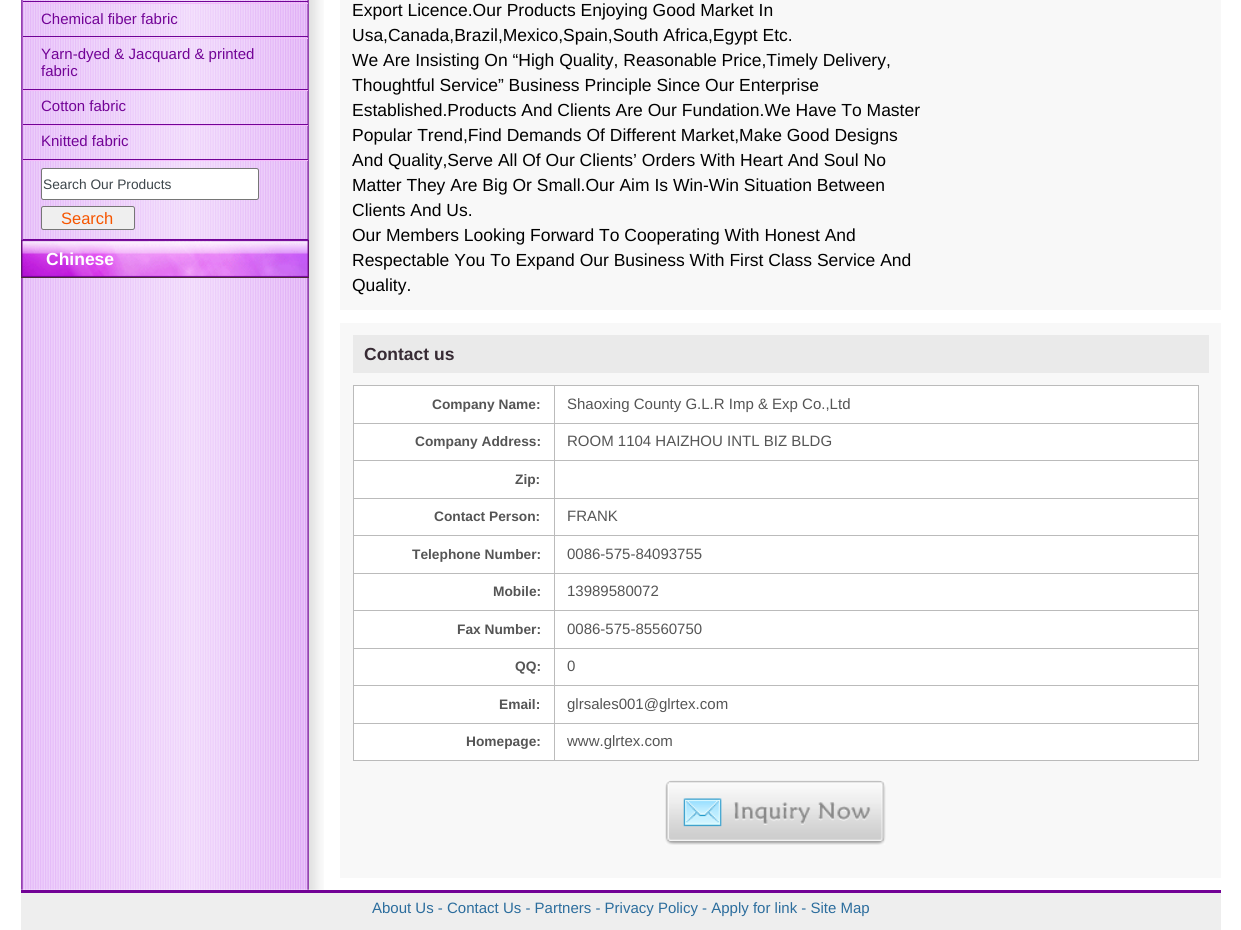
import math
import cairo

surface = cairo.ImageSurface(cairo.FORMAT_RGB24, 1241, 930)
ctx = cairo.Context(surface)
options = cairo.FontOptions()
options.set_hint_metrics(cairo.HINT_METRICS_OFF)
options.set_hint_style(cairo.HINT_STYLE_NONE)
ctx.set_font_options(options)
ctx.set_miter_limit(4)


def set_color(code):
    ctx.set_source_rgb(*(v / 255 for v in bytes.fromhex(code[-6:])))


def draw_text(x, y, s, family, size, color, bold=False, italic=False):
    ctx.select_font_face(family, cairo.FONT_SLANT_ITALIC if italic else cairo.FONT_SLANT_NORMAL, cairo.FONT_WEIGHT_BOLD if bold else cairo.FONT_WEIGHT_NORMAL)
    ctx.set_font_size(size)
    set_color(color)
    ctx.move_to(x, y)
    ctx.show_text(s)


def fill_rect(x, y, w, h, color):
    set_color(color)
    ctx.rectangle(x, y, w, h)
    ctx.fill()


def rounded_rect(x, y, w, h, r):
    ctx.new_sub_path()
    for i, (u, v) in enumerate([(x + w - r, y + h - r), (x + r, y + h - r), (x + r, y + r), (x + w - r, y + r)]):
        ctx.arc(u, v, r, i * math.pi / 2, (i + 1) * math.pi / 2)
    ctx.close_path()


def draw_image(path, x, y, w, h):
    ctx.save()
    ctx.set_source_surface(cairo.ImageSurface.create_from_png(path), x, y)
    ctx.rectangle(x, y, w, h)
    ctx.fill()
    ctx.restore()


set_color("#ffffff")
ctx.paint()
draw_image("assets/img1.png", 21, 0, 303, 890)
fill_rect(23, 1, 285, 1, "#720296")
fill_rect(23, 3, 285, 1, "#f4bafb")
fill_rect(23, 36, 285, 1, "#720296")
draw_text(41, 24, "Chemical fiber fabric", "Liberation Sans", 15, "#720396")
fill_rect(23, 38, 285, 1, "#f4bafb")
fill_rect(23, 89, 285, 1, "#720296")
draw_text(41, 59, "Yarn-dyed & Jacquard & printed", "Liberation Sans", 15, "#720396")
draw_text(41, 76, "fabric", "Liberation Sans", 15, "#720396")
fill_rect(23, 90, 285, 1, "#f4bafb")
fill_rect(23, 124, 285, 1, "#720296")
draw_text(41, 111, "Cotton fabric", "Liberation Sans", 15, "#720396")
fill_rect(23, 125, 285, 1, "#f4bafb")
fill_rect(23, 159, 285, 1, "#720296")
draw_text(41, 146, "Knitted fabric", "Liberation Sans", 15, "#720396")
fill_rect(23, 160, 285, 1, "#f4bafb")
fill_rect(23, 239, 285, 1, "#720296")
set_color("#ffffff")
rounded_rect(41.5, 168.5, 217, 31, 2)
ctx.fill_preserve()
set_color("#767676")
ctx.set_line_width(1)
ctx.stroke()
draw_text(43, 189, "Search Our Products", "Liberation Sans", 13.75, "#3d464b")
set_color("#efefef")
rounded_rect(41.5, 206.5, 93, 23, 2)
ctx.fill_preserve()
set_color("#767676")
ctx.stroke()
draw_text(61, 224, "Search", "Liberation Sans", 16.5, "#f65500")
fill_rect(21, 240, 288, 38, "#443a16")
draw_image("assets/img2.png", 21, 239, 288, 39)
draw_text(46, 265, "Chinese", "Liberation Sans", 17.5, "#ffffff", bold=True)
fill_rect(340, 0, 881, 310, "#f8f8f8")
draw_text(352, 16, "Export Licence.Our Products Enjoying Good Market In", "Liberation Sans", 17.5, "#000000")
draw_text(352, 41, "Usa,Canada,Brazil,Mexico,Spain,South Africa,Egypt Etc.", "Liberation Sans", 17.5, "#000000")
draw_text(352, 66, "We Are Insisting On “High Quality, Reasonable Price,Timely Delivery,", "Liberation Sans", 17.5, "#000000")
draw_text(352, 91, "Thoughtful Service” Business Principle Since Our Enterprise", "Liberation Sans", 17.5, "#000000")
draw_text(352, 116, "Established.Products And Clients Are Our Fundation.We Have To Master", "Liberation Sans", 17.5, "#000000")
draw_text(352, 141, "Popular Trend,Find Demands Of Different Market,Make Good Designs", "Liberation Sans", 17.5, "#000000")
draw_text(352, 166, "And Quality,Serve All Of Our Clients’ Orders With Heart And Soul No", "Liberation Sans", 17.5, "#000000")
draw_text(352, 191, "Matter They Are Big Or Small.Our Aim Is Win-Win Situation Between", "Liberation Sans", 17.5, "#000000")
draw_text(352, 216, "Clients And Us.", "Liberation Sans", 17.5, "#000000")
draw_text(352, 241, "Our Members Looking Forward To Cooperating With Honest And", "Liberation Sans", 17.5, "#000000")
draw_text(352, 266, "Respectable You To Expand Our Business With First Class Service And", "Liberation Sans", 17.5, "#000000")
draw_text(352, 291, "Quality.", "Liberation Sans", 17.5, "#000000")
fill_rect(340, 323, 881, 555, "#f8f8f8")
fill_rect(353, 335, 856, 38, "#eaeaea")
draw_text(364, 360, "Contact us", "Liberation Sans", 17.5, "#372b34", bold=True)
fill_rect(354, 386, 844, 374, "#ffffff")
fill_rect(353, 385, 846, 1, "#bbbbbb")
fill_rect(1198, 385, 1, 376, "#bbbbbb")
fill_rect(353, 760, 846, 1, "#bbbbbb")
fill_rect(353, 385, 1, 376, "#bbbbbb")
draw_text(432, 409, "Company Name:", "Liberation Sans", 13.75, "#555555", bold=True)
fill_rect(554, 423, 645, 1, "#bbbbbb")
fill_rect(554, 460, 645, 1, "#bbbbbb")
fill_rect(554, 498, 645, 1, "#bbbbbb")
fill_rect(554, 535, 645, 1, "#bbbbbb")
fill_rect(554, 573, 645, 1, "#bbbbbb")
fill_rect(554, 610, 645, 1, "#bbbbbb")
fill_rect(554, 648, 645, 1, "#bbbbbb")
fill_rect(554, 685, 645, 1, "#bbbbbb")
fill_rect(554, 723, 645, 1, "#bbbbbb")
fill_rect(554, 723, 1, 38, "#bbbbbb")
fill_rect(353, 723, 202, 1, "#bbbbbb")
fill_rect(554, 685, 1, 39, "#bbbbbb")
fill_rect(353, 685, 202, 1, "#bbbbbb")
fill_rect(554, 648, 1, 38, "#bbbbbb")
fill_rect(353, 648, 202, 1, "#bbbbbb")
fill_rect(554, 610, 1, 39, "#bbbbbb")
fill_rect(353, 610, 202, 1, "#bbbbbb")
fill_rect(554, 573, 1, 38, "#bbbbbb")
fill_rect(353, 573, 202, 1, "#bbbbbb")
fill_rect(554, 535, 1, 39, "#bbbbbb")
fill_rect(353, 535, 202, 1, "#bbbbbb")
fill_rect(554, 498, 1, 38, "#bbbbbb")
fill_rect(353, 498, 202, 1, "#bbbbbb")
fill_rect(554, 460, 1, 39, "#bbbbbb")
fill_rect(353, 460, 202, 1, "#bbbbbb")
fill_rect(554, 423, 1, 38, "#bbbbbb")
fill_rect(353, 423, 202, 1, "#bbbbbb")
fill_rect(554, 385, 1, 39, "#bbbbbb")
draw_text(567, 409, "Shaoxing County G.L.R Imp & Exp Co.,Ltd", "Liberation Sans", 15, "#555555")
draw_text(415, 446, "Company Address:", "Liberation Sans", 13.75, "#555555", bold=True)
draw_text(567, 446, "ROOM 1104 HAIZHOU INTL BIZ BLDG", "Liberation Sans", 15, "#555555")
draw_text(515, 484, "Zip:", "Liberation Sans", 13.75, "#555555", bold=True)
draw_text(434, 521, "Contact Person:", "Liberation Sans", 13.75, "#555555", bold=True)
draw_text(567, 521, "FRANK", "Liberation Sans", 15, "#555555")
draw_text(412, 559, "Telephone Number:", "Liberation Sans", 13.75, "#555555", bold=True)
draw_text(567, 559, "0086-575-84093755", "Liberation Sans", 15, "#555555")
draw_text(493, 596, "Mobile:", "Liberation Sans", 13.75, "#555555", bold=True)
draw_text(567, 596, "13989580072", "Liberation Sans", 15, "#555555")
draw_text(457, 634, "Fax Number:", "Liberation Sans", 13.75, "#555555", bold=True)
draw_text(567, 634, "0086-575-85560750", "Liberation Sans", 15, "#555555")
draw_text(515, 671, "QQ:", "Liberation Sans", 13.75, "#555555", bold=True)
draw_text(567, 671, "0", "Liberation Sans", 15, "#555555")
draw_text(499, 709, "Email:", "Liberation Sans", 13.75, "#555555", bold=True)
draw_text(567, 709, "glrsales001@glrtex.com", "Liberation Sans", 15, "#555555")
draw_text(466, 746, "Homepage:", "Liberation Sans", 13.75, "#555555", bold=True)
draw_text(567, 746, "www.glrtex.com", "Liberation Sans", 15, "#555555")
draw_image("assets/img3.png", 665, 780, 221, 65)
fill_rect(21, 893, 1200, 37, "#eeeeee")
fill_rect(21, 890, 1200, 3, "#720296")
draw_text(372, 913, "About Us - Contact Us - Partners - Privacy Policy - Apply for link - Site Map", "Liberation Sans", 15, "#2c6d9d")
surface.write_to_png("output.png")
